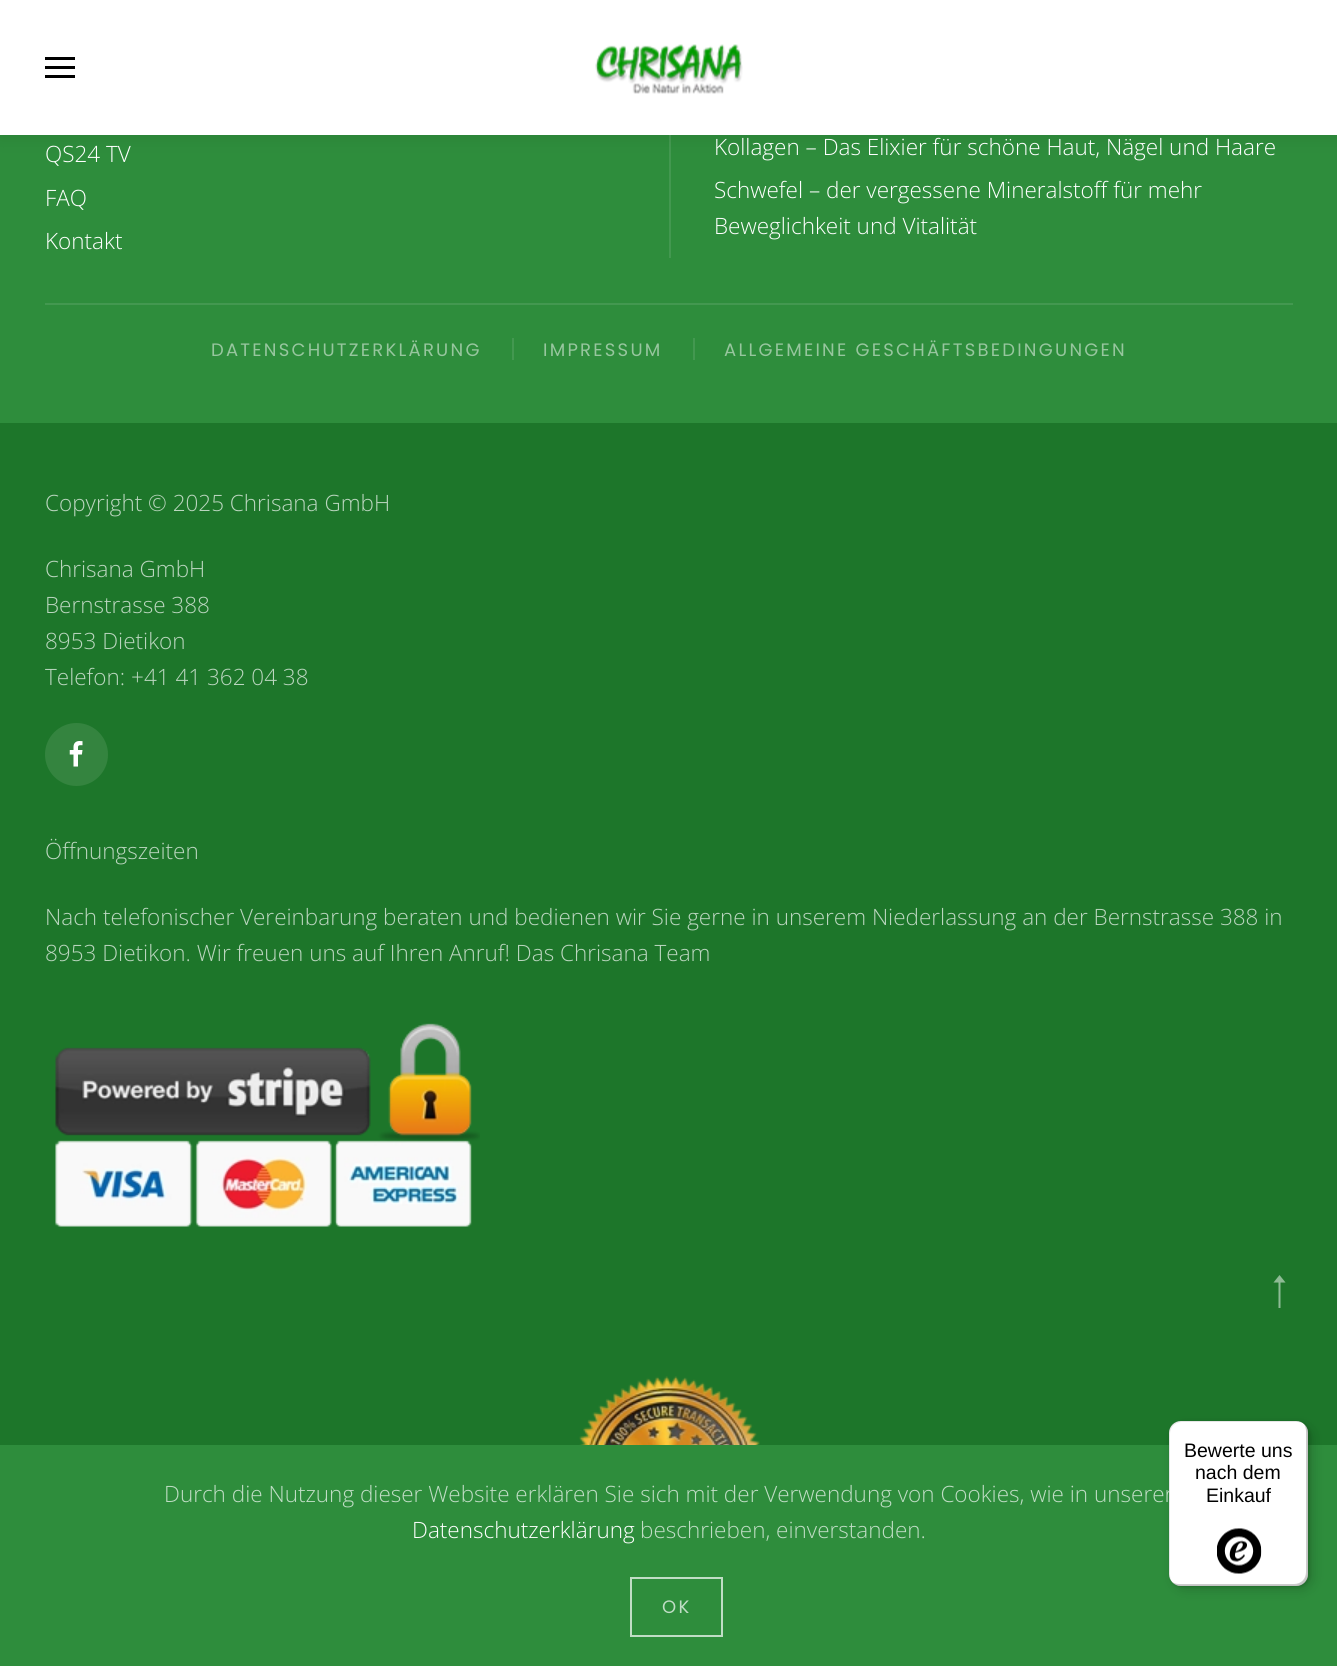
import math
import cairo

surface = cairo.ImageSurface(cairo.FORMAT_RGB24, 1337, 1666)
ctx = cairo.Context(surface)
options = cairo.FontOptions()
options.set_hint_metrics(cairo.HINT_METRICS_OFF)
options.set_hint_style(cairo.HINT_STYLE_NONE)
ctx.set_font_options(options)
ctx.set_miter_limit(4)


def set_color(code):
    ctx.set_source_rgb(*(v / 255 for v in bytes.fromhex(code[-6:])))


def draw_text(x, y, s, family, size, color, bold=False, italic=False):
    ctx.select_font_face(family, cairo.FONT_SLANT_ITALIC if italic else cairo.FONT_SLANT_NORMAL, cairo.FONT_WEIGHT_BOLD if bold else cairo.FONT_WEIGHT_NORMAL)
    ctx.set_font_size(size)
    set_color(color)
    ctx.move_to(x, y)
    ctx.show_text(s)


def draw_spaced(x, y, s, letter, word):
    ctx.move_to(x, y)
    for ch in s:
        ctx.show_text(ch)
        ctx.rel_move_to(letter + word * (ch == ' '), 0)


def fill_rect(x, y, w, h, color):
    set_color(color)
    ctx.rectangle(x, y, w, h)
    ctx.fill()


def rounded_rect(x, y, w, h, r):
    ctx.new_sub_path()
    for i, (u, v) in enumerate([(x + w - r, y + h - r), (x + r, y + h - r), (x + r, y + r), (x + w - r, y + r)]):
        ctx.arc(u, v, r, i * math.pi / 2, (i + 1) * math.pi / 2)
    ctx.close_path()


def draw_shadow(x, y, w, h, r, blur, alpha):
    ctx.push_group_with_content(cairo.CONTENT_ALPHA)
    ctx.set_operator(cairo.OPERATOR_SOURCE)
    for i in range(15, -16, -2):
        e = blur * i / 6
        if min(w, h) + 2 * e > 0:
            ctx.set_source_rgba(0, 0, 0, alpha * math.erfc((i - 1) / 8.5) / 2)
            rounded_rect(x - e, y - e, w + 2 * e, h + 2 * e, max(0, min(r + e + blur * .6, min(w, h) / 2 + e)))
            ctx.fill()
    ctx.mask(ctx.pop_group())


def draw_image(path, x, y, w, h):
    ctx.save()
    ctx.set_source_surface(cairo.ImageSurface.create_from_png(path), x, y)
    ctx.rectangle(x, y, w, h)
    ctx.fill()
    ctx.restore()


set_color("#2e8d3c")
ctx.paint()
fill_rect(669, 135, 2, 123, "#439850")
set_color("#000000")
draw_shadow(0, 3, 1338, 135, 0, 8, 0.09)
fill_rect(0, 0, 1337, 135, "#ffffff")
fill_rect(45, 57, 30, 3, "#000000")
fill_rect(45, 66, 30, 3, "#000000")
fill_rect(45, 75, 30, 3, "#000000")
draw_image("assets/img1.png", 595, 44, 148, 50)
draw_text(45, 162, "QS24 TV", "Open Sans Light", 22.5, "#ffffff")
draw_text(45, 206, "FAQ", "Open Sans Light", 22.5, "#ffffff")
draw_text(45, 249, "Kontakt", "Open Sans Light", 22.5, "#ffffff")
draw_text(714, 155, "Kollagen – Das Elixier für schöne Haut, Nägel und Haare", "Open Sans Light", 22.5, "#ffffff")
draw_text(714, 198, "Schwefel – der vergessene Mineralstoff für mehr", "Open Sans Light", 22.5, "#ffffff")
draw_text(714, 234, "Beweglichkeit und Vitalität", "Open Sans Light", 22.5, "#ffffff")
fill_rect(45, 303, 1248, 2, "#439850")
ctx.select_font_face("Poppins")
ctx.set_font_size(18)
set_color("#97c69e")
draw_spaced(211, 356, "DATENSCHUTZERKLÄRUNG", 2.25, 0)
fill_rect(512, 338, 2, 22, "#439850")
set_color("#97c69e")
draw_spaced(543, 356, "IMPRESSUM", 2.25, 0)
fill_rect(693, 338, 2, 22, "#439850")
set_color("#97c69e")
draw_spaced(724, 356, "ALLGEMEINE GESCHÄFTSBEDINGUNGEN", 2.25, 0)
fill_rect(0, 423, 1337, 1022, "#1d762a")
draw_text(45, 511, "Copyright © 2025 Chrisana GmbH", "Open Sans Light", 22.5, "#bbd6bf")
draw_text(45, 577, "Chrisana GmbH", "Open Sans Light", 22.5, "#bbd6bf")
draw_text(45, 613, "Bernstrasse 388", "Open Sans Light", 22.5, "#bbd6bf")
draw_text(45, 649, "8953 Dietikon", "Open Sans Light", 22.5, "#bbd6bf")
draw_text(45, 685, "Telefon: +41 41 362 04 38", "Open Sans Light", 22.5, "#bbd6bf")
set_color("#34843f")
ctx.new_path()
ctx.arc(76.5, 754.5, 31.5, 0, 2 * math.pi)
ctx.fill()
draw_image("assets/img2.png", 69, 741, 14, 26)
draw_text(45, 859, "Öffnungszeiten", "Open Sans Light", 22.5, "#bbd6bf")
draw_text(45, 925, "Nach telefonischer Vereinbarung beraten und bedienen wir Sie gerne in unserem Niederlassung an der Bernstrasse 388 in", "Open Sans Light", 22.5, "#bbd6bf")
draw_text(45, 961, "8953 Dietikon. Wir freuen uns auf Ihren Anruf! Das Chrisana Team", "Open Sans Light", 22.5, "#bbd6bf")
draw_image("assets/img3.png", 55, 1023, 425, 204)
set_color("#8ebb95")
ctx.new_path()
ctx.move_to(1285.5, 1282.5)
ctx.line_to(1279.5, 1275)
ctx.line_to(1273.5, 1282.5)
ctx.line_to(1278.5, 1282.5)
ctx.line_to(1278.5, 1308)
ctx.line_to(1280.5, 1308)
ctx.line_to(1280.5, 1282.5)
ctx.close_path()
ctx.fill()
draw_image("assets/img4.png", 579, 1376, 181, 69)
set_color("#000000")
draw_shadow(1173, 1425, 140, 165, 12, 6, 0.15)
draw_shadow(1170, 1422, 140, 165, 12, 1.5, 0.15)
draw_text(164, 1502, "Durch die Nutzung dieser Website erklären Sie sich mit der Verwendung von Cookies, wie in unserer", "Open Sans Light", 22.5, "#c0ddc5")
set_color("#ffffff")
rounded_rect(1169, 1421, 139, 165, 12)
ctx.fill()
ctx.set_source_rgba(0, 0, 0, 0.1)
ctx.new_path()
ctx.move_to(1182, 1422)
ctx.line_to(1298, 1422)
ctx.line_to(1303, 1423)
ctx.curve_to(1301, 1422, 1298, 1421, 1296, 1421)
ctx.line_to(1181, 1421)
ctx.curve_to(1174, 1421, 1169, 1426, 1169, 1433)
ctx.line_to(1169, 1574)
ctx.curve_to(1169, 1577, 1170, 1580, 1172, 1582)
ctx.curve_to(1171, 1580, 1170, 1578, 1170, 1575)
ctx.line_to(1170, 1434)
ctx.curve_to(1170, 1427, 1175, 1422, 1182, 1422)
ctx.close_path()
ctx.fill()
ctx.set_source_rgba(0, 0, 0, 0.2)
ctx.new_path()
ctx.move_to(1172, 1582)
ctx.curve_to(1174, 1584, 1177, 1586, 1181, 1586)
ctx.line_to(1296, 1586)
ctx.curve_to(1303, 1586, 1308, 1581, 1308, 1574)
ctx.line_to(1308, 1433)
ctx.curve_to(1308, 1429, 1306, 1426, 1304, 1424)
ctx.curve_to(1305, 1426, 1306, 1428, 1306, 1431)
ctx.line_to(1306, 1572)
ctx.curve_to(1306, 1579, 1301, 1584, 1294, 1584)
ctx.line_to(1179, 1584)
ctx.curve_to(1176, 1584, 1174, 1583, 1172, 1582)
ctx.close_path()
ctx.fill()
ctx.set_source_rgba(0.196, 0.196, 0.196, 0.2)
ctx.new_path()
ctx.move_to(1172, 1582)
ctx.curve_to(1174, 1584, 1177, 1586, 1181, 1586)
ctx.line_to(1296, 1586)
ctx.curve_to(1303, 1586, 1308, 1581, 1308, 1574)
ctx.line_to(1308, 1433)
ctx.curve_to(1308, 1430, 1307, 1427, 1305, 1425)
ctx.curve_to(1306, 1427, 1307, 1429, 1307, 1432)
ctx.line_to(1307, 1573)
ctx.curve_to(1307, 1579, 1302, 1585, 1295, 1585)
ctx.line_to(1180, 1585)
ctx.curve_to(1177, 1585, 1174, 1584, 1172, 1582)
ctx.close_path()
ctx.fill()
ctx.set_source_rgba(1, 1, 1, 0.3)
ctx.new_path()
ctx.move_to(1172, 1582)
ctx.curve_to(1174, 1584, 1177, 1586, 1181, 1586)
ctx.line_to(1296, 1586)
ctx.curve_to(1303, 1586, 1308, 1581, 1308, 1574)
ctx.line_to(1308, 1433)
ctx.curve_to(1308, 1430, 1307, 1427, 1305, 1425)
ctx.curve_to(1306, 1427, 1307, 1429, 1307, 1432)
ctx.line_to(1307, 1573)
ctx.curve_to(1307, 1579, 1302, 1585, 1295, 1585)
ctx.line_to(1180, 1585)
ctx.curve_to(1177, 1585, 1174, 1584, 1172, 1582)
ctx.close_path()
ctx.fill()
draw_text(1184, 1457, "Bewerte uns", "Liberation Sans", 19.5, "#000000")
draw_text(1195, 1479, "nach dem", "Liberation Sans", 19.5, "#000000")
draw_text(1206, 1502, "Einkauf", "Liberation Sans", 19.5, "#000000")
draw_image("assets/img5.png", 1217, 1528, 45, 46)
draw_text(412, 1538, "Datenschutzerklärung", "Open Sans Light", 22.5, "#ffffff")
draw_text(640, 1538, "beschrieben, einverstanden.", "Open Sans Light", 22.5, "#c0ddc5")
ctx.rectangle(631, 1578, 91, 58)
ctx.stroke()
ctx.select_font_face("Poppins")
ctx.set_font_size(18)
draw_spaced(662, 1613, "OK", 2.25, 0)
surface.write_to_png("output.png")
